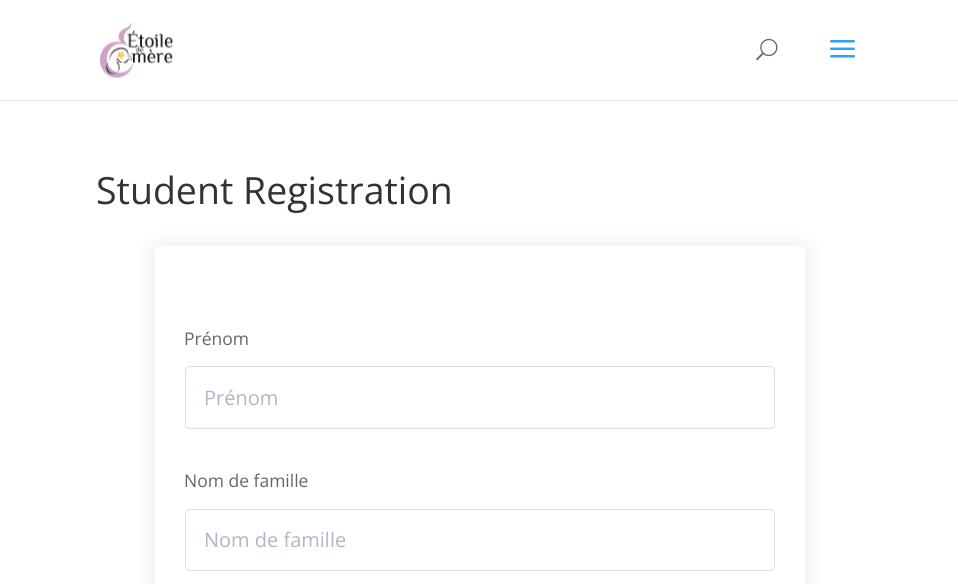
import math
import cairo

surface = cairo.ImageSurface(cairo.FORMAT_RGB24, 958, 584)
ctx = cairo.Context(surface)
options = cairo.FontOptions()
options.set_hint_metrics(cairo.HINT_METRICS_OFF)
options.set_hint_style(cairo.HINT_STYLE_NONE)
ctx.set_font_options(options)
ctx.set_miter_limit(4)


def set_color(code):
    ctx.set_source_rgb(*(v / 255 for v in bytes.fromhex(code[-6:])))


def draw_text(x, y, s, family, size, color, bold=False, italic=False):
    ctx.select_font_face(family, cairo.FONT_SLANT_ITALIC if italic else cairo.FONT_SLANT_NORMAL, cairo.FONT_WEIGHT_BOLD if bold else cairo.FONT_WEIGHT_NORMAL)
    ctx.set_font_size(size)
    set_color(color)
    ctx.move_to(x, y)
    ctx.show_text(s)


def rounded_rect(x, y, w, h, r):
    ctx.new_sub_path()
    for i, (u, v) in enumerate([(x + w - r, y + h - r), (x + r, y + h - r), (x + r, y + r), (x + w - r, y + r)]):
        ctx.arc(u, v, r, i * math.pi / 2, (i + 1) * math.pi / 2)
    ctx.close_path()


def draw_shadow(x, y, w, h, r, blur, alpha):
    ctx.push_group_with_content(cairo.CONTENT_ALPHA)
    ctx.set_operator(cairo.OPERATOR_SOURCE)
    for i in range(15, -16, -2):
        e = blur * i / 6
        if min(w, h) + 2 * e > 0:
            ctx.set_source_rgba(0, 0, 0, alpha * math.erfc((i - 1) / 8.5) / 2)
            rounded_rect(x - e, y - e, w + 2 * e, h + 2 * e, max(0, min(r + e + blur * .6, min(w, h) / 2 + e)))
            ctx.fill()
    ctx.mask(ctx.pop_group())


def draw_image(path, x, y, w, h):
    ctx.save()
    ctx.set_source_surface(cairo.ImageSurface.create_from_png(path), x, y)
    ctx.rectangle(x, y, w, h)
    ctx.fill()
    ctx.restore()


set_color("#ffffff")
ctx.paint()
set_color("#e6e6e6")
ctx.new_path()
ctx.move_to(0, 100)
ctx.line_to(0, 101)
ctx.line_to(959, 101)
ctx.line_to(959, 1)
ctx.line_to(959, 100)
ctx.close_path()
ctx.fill()
draw_image("assets/img1.png", 100, 22, 73, 56)
draw_image("assets/img2.png", 756, 38, 22, 23)
draw_image("assets/img3.png", 830, 40, 25, 18)
draw_text(96, 204, "Student Registration", "Open Sans", 37.5, "#333333")
ctx.save()
ctx.set_fill_rule(cairo.FILL_RULE_EVEN_ODD)
ctx.new_path()
ctx.move_to(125, 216)
ctx.line_to(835, 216)
ctx.line_to(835, 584)
ctx.line_to(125, 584)
ctx.close_path()
ctx.move_to(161, 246)
ctx.line_to(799, 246)
ctx.curve_to(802.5, 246, 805, 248.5, 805, 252)
ctx.line_to(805, 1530)
ctx.curve_to(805, 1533.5, 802.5, 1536, 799, 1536)
ctx.line_to(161, 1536)
ctx.curve_to(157.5, 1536, 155, 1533.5, 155, 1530)
ctx.line_to(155, 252)
ctx.curve_to(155, 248.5, 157.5, 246, 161, 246)
ctx.close_path()
ctx.clip()
set_color("#000000")
draw_shadow(155, 246, 650, 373, 6, 9.5, 0.1)
ctx.restore()
draw_text(184, 345, "Prénom", "Open Sans", 17.5, "#666666")
rounded_rect(185.5, 366.5, 589, 62, 4.5)
set_color("#dcdfe5")
ctx.set_line_width(1)
ctx.stroke()
draw_text(204, 405, "Prénom", "Open Sans", 20, "#b0b6c8")
draw_text(184, 487, "Nom de famille", "Open Sans", 17.5, "#666666")
rounded_rect(185.5, 509.5, 589, 61, 4.5)
set_color("#dcdfe5")
ctx.stroke()
draw_text(204, 547, "Nom de famille", "Open Sans", 20, "#b0b6c8")
surface.write_to_png("output.png")
